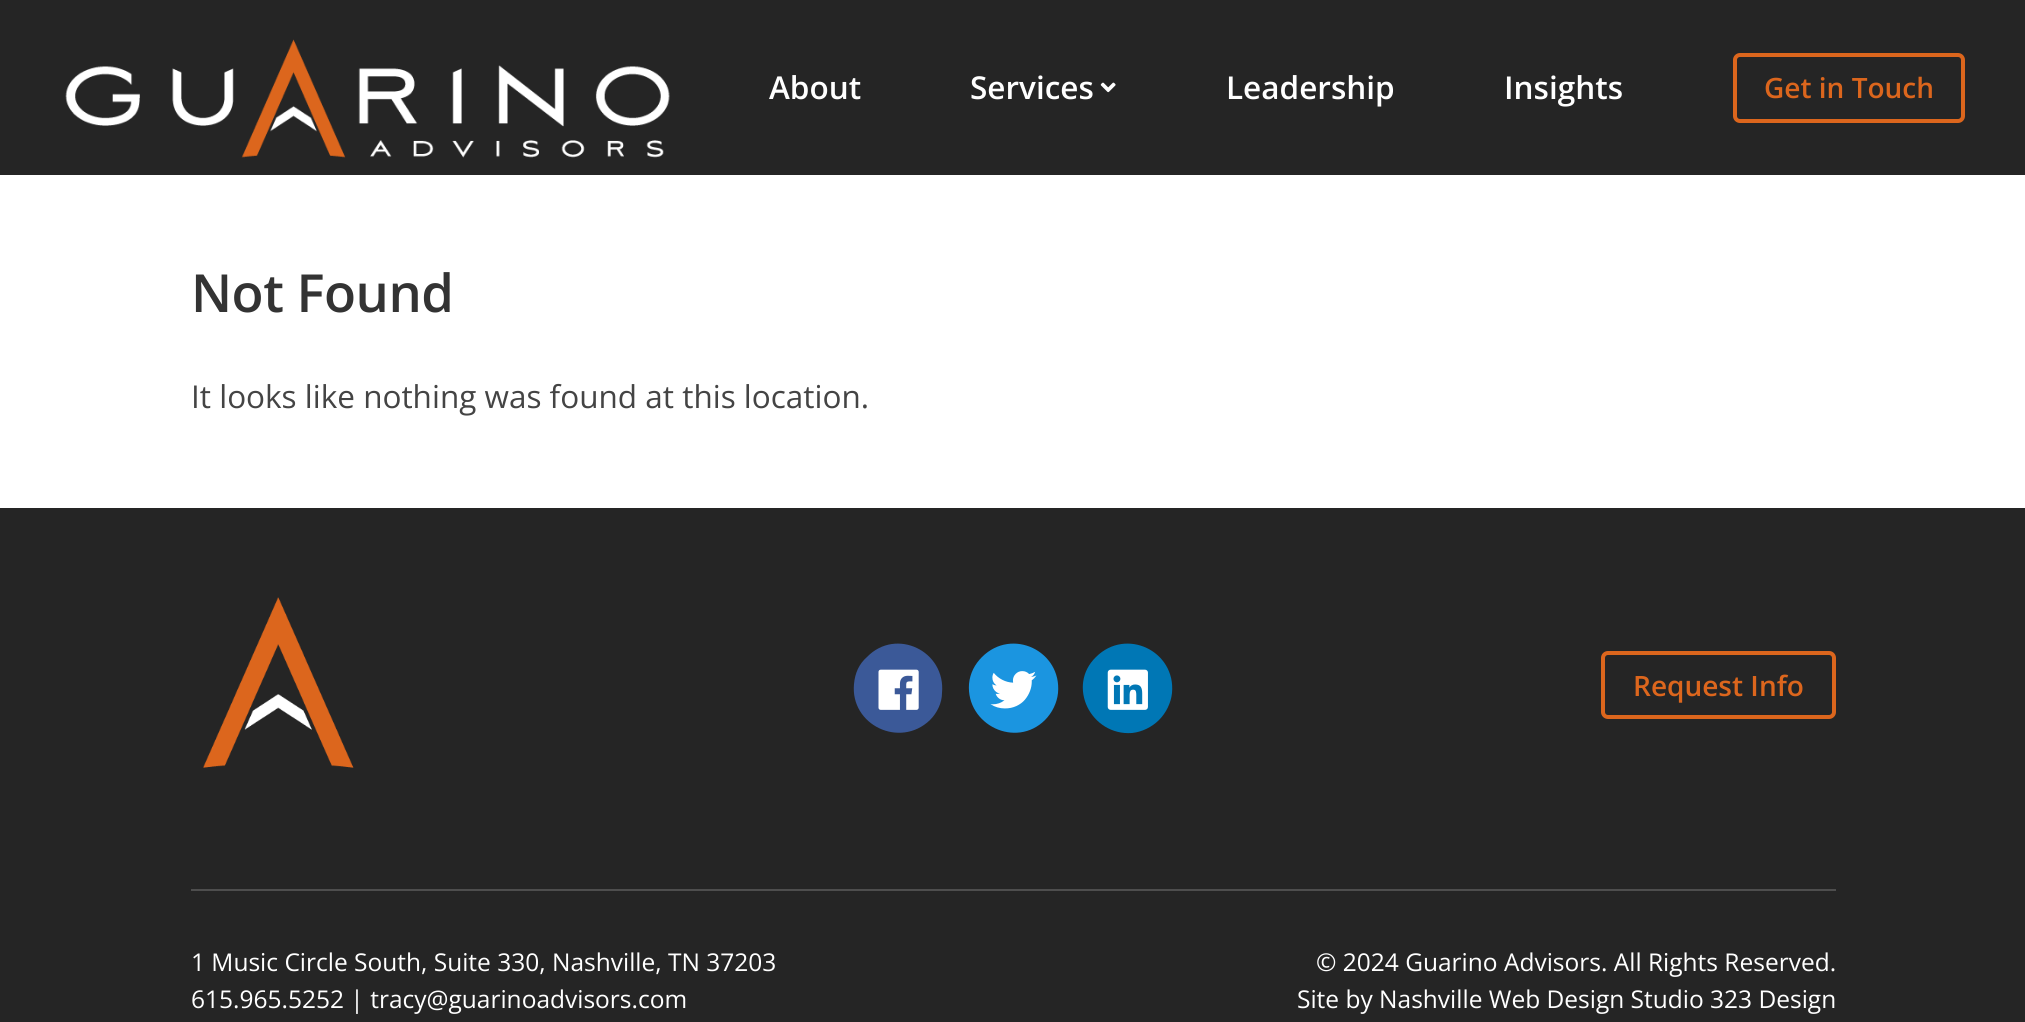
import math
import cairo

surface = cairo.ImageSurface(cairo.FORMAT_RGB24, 2025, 1022)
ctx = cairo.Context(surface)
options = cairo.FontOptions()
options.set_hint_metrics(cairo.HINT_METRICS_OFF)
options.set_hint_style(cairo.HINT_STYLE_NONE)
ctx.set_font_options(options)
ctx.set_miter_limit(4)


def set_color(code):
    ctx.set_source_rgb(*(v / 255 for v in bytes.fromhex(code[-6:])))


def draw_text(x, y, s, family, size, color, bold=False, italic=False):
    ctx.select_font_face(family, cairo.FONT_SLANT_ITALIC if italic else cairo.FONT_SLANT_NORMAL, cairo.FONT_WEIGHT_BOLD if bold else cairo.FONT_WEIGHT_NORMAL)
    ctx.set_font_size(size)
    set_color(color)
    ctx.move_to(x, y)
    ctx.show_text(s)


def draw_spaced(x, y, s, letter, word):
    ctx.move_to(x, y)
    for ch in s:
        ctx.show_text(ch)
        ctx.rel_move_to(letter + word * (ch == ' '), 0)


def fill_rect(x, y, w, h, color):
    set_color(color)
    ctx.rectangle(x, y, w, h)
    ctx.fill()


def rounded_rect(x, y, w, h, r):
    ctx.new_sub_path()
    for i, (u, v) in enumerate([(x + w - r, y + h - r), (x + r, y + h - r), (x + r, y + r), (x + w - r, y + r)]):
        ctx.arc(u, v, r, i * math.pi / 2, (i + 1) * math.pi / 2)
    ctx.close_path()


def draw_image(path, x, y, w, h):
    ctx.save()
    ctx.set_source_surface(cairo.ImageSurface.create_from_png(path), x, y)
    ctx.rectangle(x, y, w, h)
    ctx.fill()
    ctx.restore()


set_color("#ffffff")
ctx.paint()
fill_rect(0, 0, 2025, 175, "#252525")
draw_image("assets/img1.png", 65, 39, 605, 119)
draw_text(769, 99, "About", "Open Sans SemiBold", 31.5, "#ffffff")
draw_text(970, 99, "Services", "Open Sans SemiBold", 31.5, "#ffffff")
draw_image("assets/img2.png", 1100, 82, 16, 11)
draw_text(1226, 99, "Leadership", "Open Sans SemiBold", 31.5, "#ffffff")
draw_text(1504, 99, "Insights", "Open Sans SemiBold", 31.5, "#ffffff")
rounded_rect(1735, 55, 228, 66, 5)
set_color("#dc661d")
ctx.set_line_width(4)
ctx.stroke()
draw_text(1764, 98, "Get in Touch", "Open Sans SemiBold", 28, "#dc661d")
ctx.set_font_size(52.5)
set_color("#333333")
draw_spaced(191, 312, "Not Found", -0.5, 0)
draw_text(191, 408, "It looks like nothing was found at this location.", "Open Sans", 31.5, "#444444")
fill_rect(0, 508, 2025, 514, "#252525")
draw_image("assets/img3.png", 203, 597, 151, 171)
set_color("#3b5998")
ctx.new_path()
ctx.move_to(867, 657)
ctx.curve_to(896, 627, 946, 651, 942, 693)
ctx.curve_to(942, 703, 937, 713, 930, 720)
ctx.curve_to(900, 749, 850, 725, 854, 684)
ctx.curve_to(855, 673, 859, 664, 867, 657)
ctx.close_path()
ctx.fill()
draw_image("assets/img4.png", 878, 669, 41, 41)
set_color("#1b95e0")
ctx.new_path()
ctx.move_to(982, 657)
ctx.curve_to(1012, 627, 1062, 651, 1058, 693)
ctx.curve_to(1057, 703, 1052, 713, 1045, 720)
ctx.curve_to(1016, 749, 966, 725, 969, 684)
ctx.curve_to(970, 673, 975, 664, 982, 657)
ctx.close_path()
ctx.fill()
draw_image("assets/img5.png", 990, 671, 47, 38)
set_color("#0077b5")
ctx.new_path()
ctx.move_to(1096, 657)
ctx.curve_to(1126, 627, 1176, 651, 1172, 693)
ctx.curve_to(1171, 703, 1166, 713, 1159, 720)
ctx.curve_to(1152, 727, 1142, 732, 1132, 733)
ctx.curve_to(1091, 736, 1066, 686, 1096, 657)
ctx.close_path()
ctx.fill()
draw_image("assets/img6.png", 1107, 669, 41, 41)
rounded_rect(1603, 653, 231, 64, 5)
set_color("#dc661d")
ctx.stroke()
draw_text(1633, 696, "Request Info", "Open Sans SemiBold", 28, "#dc661d")
fill_rect(191, 889, 1645, 2, "#4e4e4e")
draw_text(191, 971, "1 Music Circle South, Suite 330, Nashville, TN 37203", "Open Sans", 24.5, "#ffffff")
draw_text(191, 1008, "615.965.5252 | tracy@guarinoadvisors.com", "Open Sans", 24.5, "#ffffff")
draw_text(1316, 971, "© 2024 Guarino Advisors. All Rights Reserved.", "Open Sans", 24.5, "#ffffff")
draw_text(1297, 1008, "Site by Nashville Web Design Studio 323 Design", "Open Sans", 24.5, "#ffffff")
surface.write_to_png("output.png")
